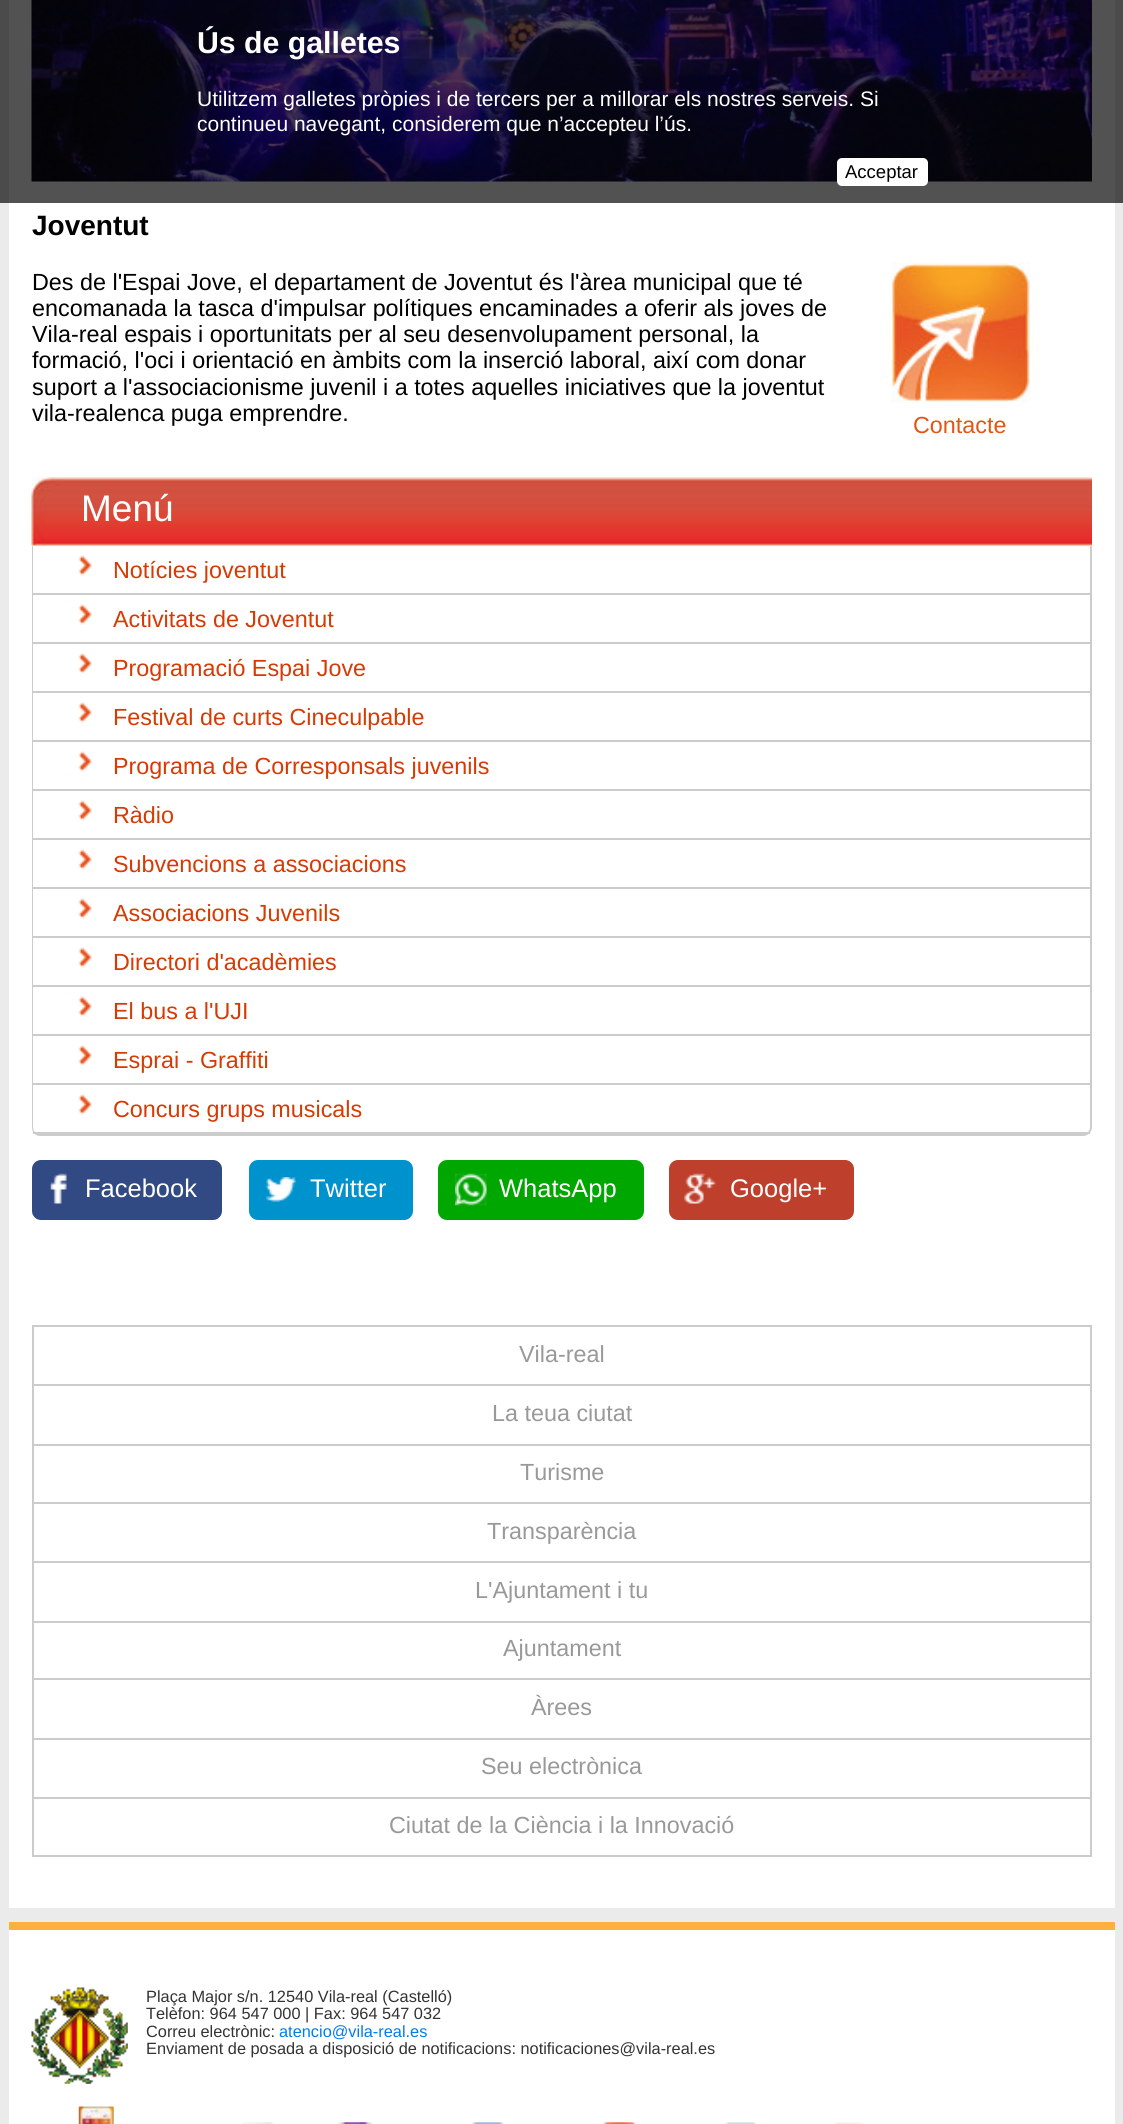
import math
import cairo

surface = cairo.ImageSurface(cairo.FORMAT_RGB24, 1123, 2124)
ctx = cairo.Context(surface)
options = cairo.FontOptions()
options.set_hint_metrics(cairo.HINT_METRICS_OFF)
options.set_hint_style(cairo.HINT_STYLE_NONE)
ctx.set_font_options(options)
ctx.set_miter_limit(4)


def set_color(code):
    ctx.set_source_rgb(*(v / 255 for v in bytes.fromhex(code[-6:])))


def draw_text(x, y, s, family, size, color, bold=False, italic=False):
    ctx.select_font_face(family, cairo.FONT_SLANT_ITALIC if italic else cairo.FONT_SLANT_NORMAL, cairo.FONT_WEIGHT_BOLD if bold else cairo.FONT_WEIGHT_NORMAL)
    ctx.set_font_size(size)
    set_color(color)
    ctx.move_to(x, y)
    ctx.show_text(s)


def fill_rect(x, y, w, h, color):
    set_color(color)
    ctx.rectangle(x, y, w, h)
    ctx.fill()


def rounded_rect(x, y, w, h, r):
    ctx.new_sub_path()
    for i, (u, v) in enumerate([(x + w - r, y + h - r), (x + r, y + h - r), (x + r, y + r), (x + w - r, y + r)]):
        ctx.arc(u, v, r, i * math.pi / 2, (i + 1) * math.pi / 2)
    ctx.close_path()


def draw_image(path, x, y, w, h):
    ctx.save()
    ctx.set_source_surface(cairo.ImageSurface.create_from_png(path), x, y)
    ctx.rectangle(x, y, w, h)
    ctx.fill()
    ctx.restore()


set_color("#ebebeb")
ctx.paint()
fill_rect(0, 0, 1123, 203, "#4b4b4b")
fill_rect(9, 0, 1106, 203, "#525252")
draw_image("assets/img1.png", 31, 0, 1061, 182)
draw_text(197, 53, "Ús de galletes", "Liberation Sans", 30.25, "#ffffff", bold=True)
draw_text(197, 106, "Utilitzem galletes pròpies i de tercers per a millorar els nostres serveis. Si", "Liberation Sans", 21, "#ffffff")
draw_text(197, 131, "continueu navegant, considerem que n’accepteu l’ús.", "Liberation Sans", 21, "#ffffff")
rounded_rect(837, 158, 91, 28, 5)
ctx.fill()
draw_text(845, 178, "Acceptar", "Liberation Sans", 18.5, "#000000")
fill_rect(9, 203, 1106, 1705, "#ffffff")
draw_text(32, 235, "Joventut", "Liberation Sans", 28, "#000000", bold=True)
draw_text(32, 290, "Des de l'Espai Jove, el departament de Joventut és l'àrea municipal que té", "Liberation Sans", 23.35, "#000000")
draw_text(32, 316, "encomanada la tasca d'impulsar polítiques encaminades a oferir als joves de", "Liberation Sans", 23.35, "#000000")
draw_text(32, 342, "Vila-real espais i oportunitats per al seu desenvolupament personal, la", "Liberation Sans", 23.35, "#000000")
draw_text(32, 368, "formació, l'oci i orientació en àmbits com la inserció laboral, així com donar", "Liberation Sans", 23.35, "#000000")
draw_text(32, 395, "suport a l'associacionisme juvenil i a totes aquelles iniciatives que la joventut", "Liberation Sans", 23.35, "#000000")
draw_text(32, 421, "vila-realenca puga emprendre.", "Liberation Sans", 23.35, "#000000")
draw_image("assets/img2.png", 891, 262, 140, 141)
draw_text(913, 433, "Contacte", "Liberation Sans", 23.35, "#e35513")
draw_image("assets/img3.png", 31, 477, 1061, 69)
draw_text(81, 521, "Menú", "Liberation Sans", 37, "#ffffff")
set_color("#cccccc")
ctx.set_fill_rule(cairo.FILL_RULE_EVEN_ODD)
ctx.new_path()
ctx.move_to(32, 546)
ctx.line_to(1092, 546)
ctx.line_to(1092, 1127)
ctx.curve_to(1092, 1132, 1088, 1136, 1083, 1136)
ctx.line_to(40, 1136)
ctx.curve_to(35, 1136, 32, 1132, 32, 1127)
ctx.close_path()
ctx.move_to(33, 546)
ctx.line_to(1090, 546)
ctx.line_to(1090, 1127)
ctx.curve_to(1090, 1131, 1087, 1134, 1083, 1134)
ctx.line_to(40, 1134)
ctx.curve_to(36, 1134, 33, 1131, 33, 1127)
ctx.close_path()
ctx.fill()
fill_rect(33, 593, 1057, 2, "#cccccc")
draw_image("assets/img4.png", 78, 555, 14, 21)
draw_text(113, 578, "Notícies joventut", "Liberation Sans", 23.35, "#d73a03")
fill_rect(33, 642, 1057, 2, "#cccccc")
draw_image("assets/img4.png", 78, 604, 14, 21)
draw_text(113, 627, "Activitats de Joventut", "Liberation Sans", 23.35, "#d73a03")
fill_rect(33, 691, 1057, 2, "#cccccc")
draw_image("assets/img4.png", 78, 653, 14, 21)
draw_text(113, 676, "Programació Espai Jove", "Liberation Sans", 23.35, "#d73a03")
fill_rect(33, 740, 1057, 2, "#cccccc")
draw_image("assets/img4.png", 78, 702, 14, 21)
draw_text(113, 725, "Festival de curts Cineculpable", "Liberation Sans", 23.35, "#d73a03")
fill_rect(33, 789, 1057, 2, "#cccccc")
draw_image("assets/img4.png", 78, 751, 14, 21)
draw_text(113, 774, "Programa de Corresponsals juvenils", "Liberation Sans", 23.35, "#d73a03")
fill_rect(33, 838, 1057, 2, "#cccccc")
draw_image("assets/img4.png", 78, 800, 14, 21)
draw_text(113, 823, "Ràdio", "Liberation Sans", 23.35, "#d73a03")
fill_rect(33, 887, 1057, 2, "#cccccc")
draw_image("assets/img4.png", 78, 849, 14, 21)
draw_text(113, 872, "Subvencions a associacions", "Liberation Sans", 23.35, "#d73a03")
fill_rect(33, 936, 1057, 2, "#cccccc")
draw_image("assets/img4.png", 78, 898, 14, 21)
draw_text(113, 921, "Associacions Juvenils", "Liberation Sans", 23.35, "#d73a03")
fill_rect(33, 985, 1057, 2, "#cccccc")
draw_image("assets/img4.png", 78, 947, 14, 21)
draw_text(113, 970, "Directori d'acadèmies", "Liberation Sans", 23.35, "#d73a03")
fill_rect(33, 1034, 1057, 2, "#cccccc")
draw_image("assets/img4.png", 78, 996, 14, 21)
draw_text(113, 1019, "El bus a l'UJI", "Liberation Sans", 23.35, "#d73a03")
fill_rect(33, 1083, 1057, 2, "#cccccc")
draw_image("assets/img4.png", 78, 1045, 14, 21)
draw_text(113, 1068, "Esprai - Graffiti", "Liberation Sans", 23.35, "#d73a03")
fill_rect(33, 1132, 1057, 2, "#cccccc")
draw_image("assets/img4.png", 78, 1094, 14, 21)
draw_text(113, 1117, "Concurs grups musicals", "Liberation Sans", 23.35, "#d73a03")
set_color("#314a83")
rounded_rect(32, 1160, 190, 60, 9)
ctx.fill()
draw_image("assets/img5.png", 50, 1173, 17, 31)
draw_text(85, 1197, "Facebook", "Liberation Sans", 25.5, "#ffffff")
set_color("#0092cc")
rounded_rect(249, 1160, 164, 60, 9)
ctx.fill()
draw_image("assets/img6.png", 266, 1177, 30, 25)
draw_text(310, 1197, "Twitter", "Liberation Sans", 25.5, "#ffffff")
set_color("#00a700")
rounded_rect(438, 1160, 206, 60, 9)
ctx.fill()
draw_image("assets/img7.png", 455, 1173, 32, 33)
draw_text(499, 1197, "WhatsApp", "Liberation Sans", 25.5, "#ffffff")
set_color("#be3f2b")
rounded_rect(669, 1160, 185, 60, 9)
ctx.fill()
draw_image("assets/img8.png", 684, 1173, 32, 31)
draw_text(730, 1197, "Google+", "Liberation Sans", 25.5, "#ffffff")
fill_rect(32, 1325, 1060, 2, "#cccccc")
fill_rect(1090, 1325, 2, 532, "#cccccc")
fill_rect(32, 1325, 2, 532, "#cccccc")
fill_rect(33, 1384, 1057, 2, "#cccccc")
draw_text(519, 1362, "Vila-real", "Liberation Sans", 23.35, "#999999")
fill_rect(33, 1444, 1057, 2, "#cccccc")
draw_text(492, 1421, "La teua ciutat", "Liberation Sans", 23.35, "#999999")
fill_rect(33, 1502, 1057, 2, "#cccccc")
draw_text(520, 1480, "Turisme", "Liberation Sans", 23.35, "#999999")
fill_rect(33, 1561, 1057, 2, "#cccccc")
draw_text(487, 1539, "Transparència", "Liberation Sans", 23.35, "#999999")
fill_rect(33, 1621, 1057, 2, "#cccccc")
draw_text(475, 1598, "L'Ajuntament i tu", "Liberation Sans", 23.35, "#999999")
fill_rect(33, 1678, 1057, 2, "#cccccc")
draw_text(503, 1656, "Ajuntament", "Liberation Sans", 23.35, "#999999")
fill_rect(33, 1738, 1057, 2, "#cccccc")
draw_text(531, 1715, "Àrees", "Liberation Sans", 23.35, "#999999")
fill_rect(33, 1797, 1057, 2, "#cccccc")
draw_text(481, 1774, "Seu electrònica", "Liberation Sans", 23.35, "#999999")
fill_rect(33, 1855, 1057, 2, "#cccccc")
draw_text(389, 1833, "Ciutat de la Ciència i la Innovació", "Liberation Sans", 23.35, "#999999")
fill_rect(9, 1930, 1106, 194, "#ffffff")
fill_rect(9, 1922, 1106, 8, "#fcb040")
draw_image("assets/img9.png", 31, 1987, 97, 97)
draw_text(146, 2002, "Plaça Major s/n. 12540 Vila-real (Castelló)", "Liberation Sans", 16.35, "#333333")
draw_text(146, 2019, "Telèfon: 964 547 000 | Fax: 964 547 032", "Liberation Sans", 16.35, "#333333")
draw_text(146, 2037, "Correu electrònic:", "Liberation Sans", 16.35, "#333333")
draw_text(279, 2037, "atencio@vila-real.es", "Liberation Sans", 16.35, "#007cf0")
draw_text(146, 2054, "Enviament de posada a disposició de notificacions: notificaciones@vila-real.es", "Liberation Sans", 16.35, "#333333")
draw_image("assets/img10.png", 78, 2106, 36, 18)
draw_image("assets/img11.png", 242, 2122, 32, 2)
draw_image("assets/img12.png", 337, 2122, 36, 2)
draw_image("assets/img13.png", 472, 2122, 32, 2)
draw_image("assets/img14.png", 602, 2122, 34, 2)
draw_image("assets/img15.png", 724, 2122, 33, 2)
draw_image("assets/img16.png", 834, 2122, 31, 2)
surface.write_to_png("output.png")
